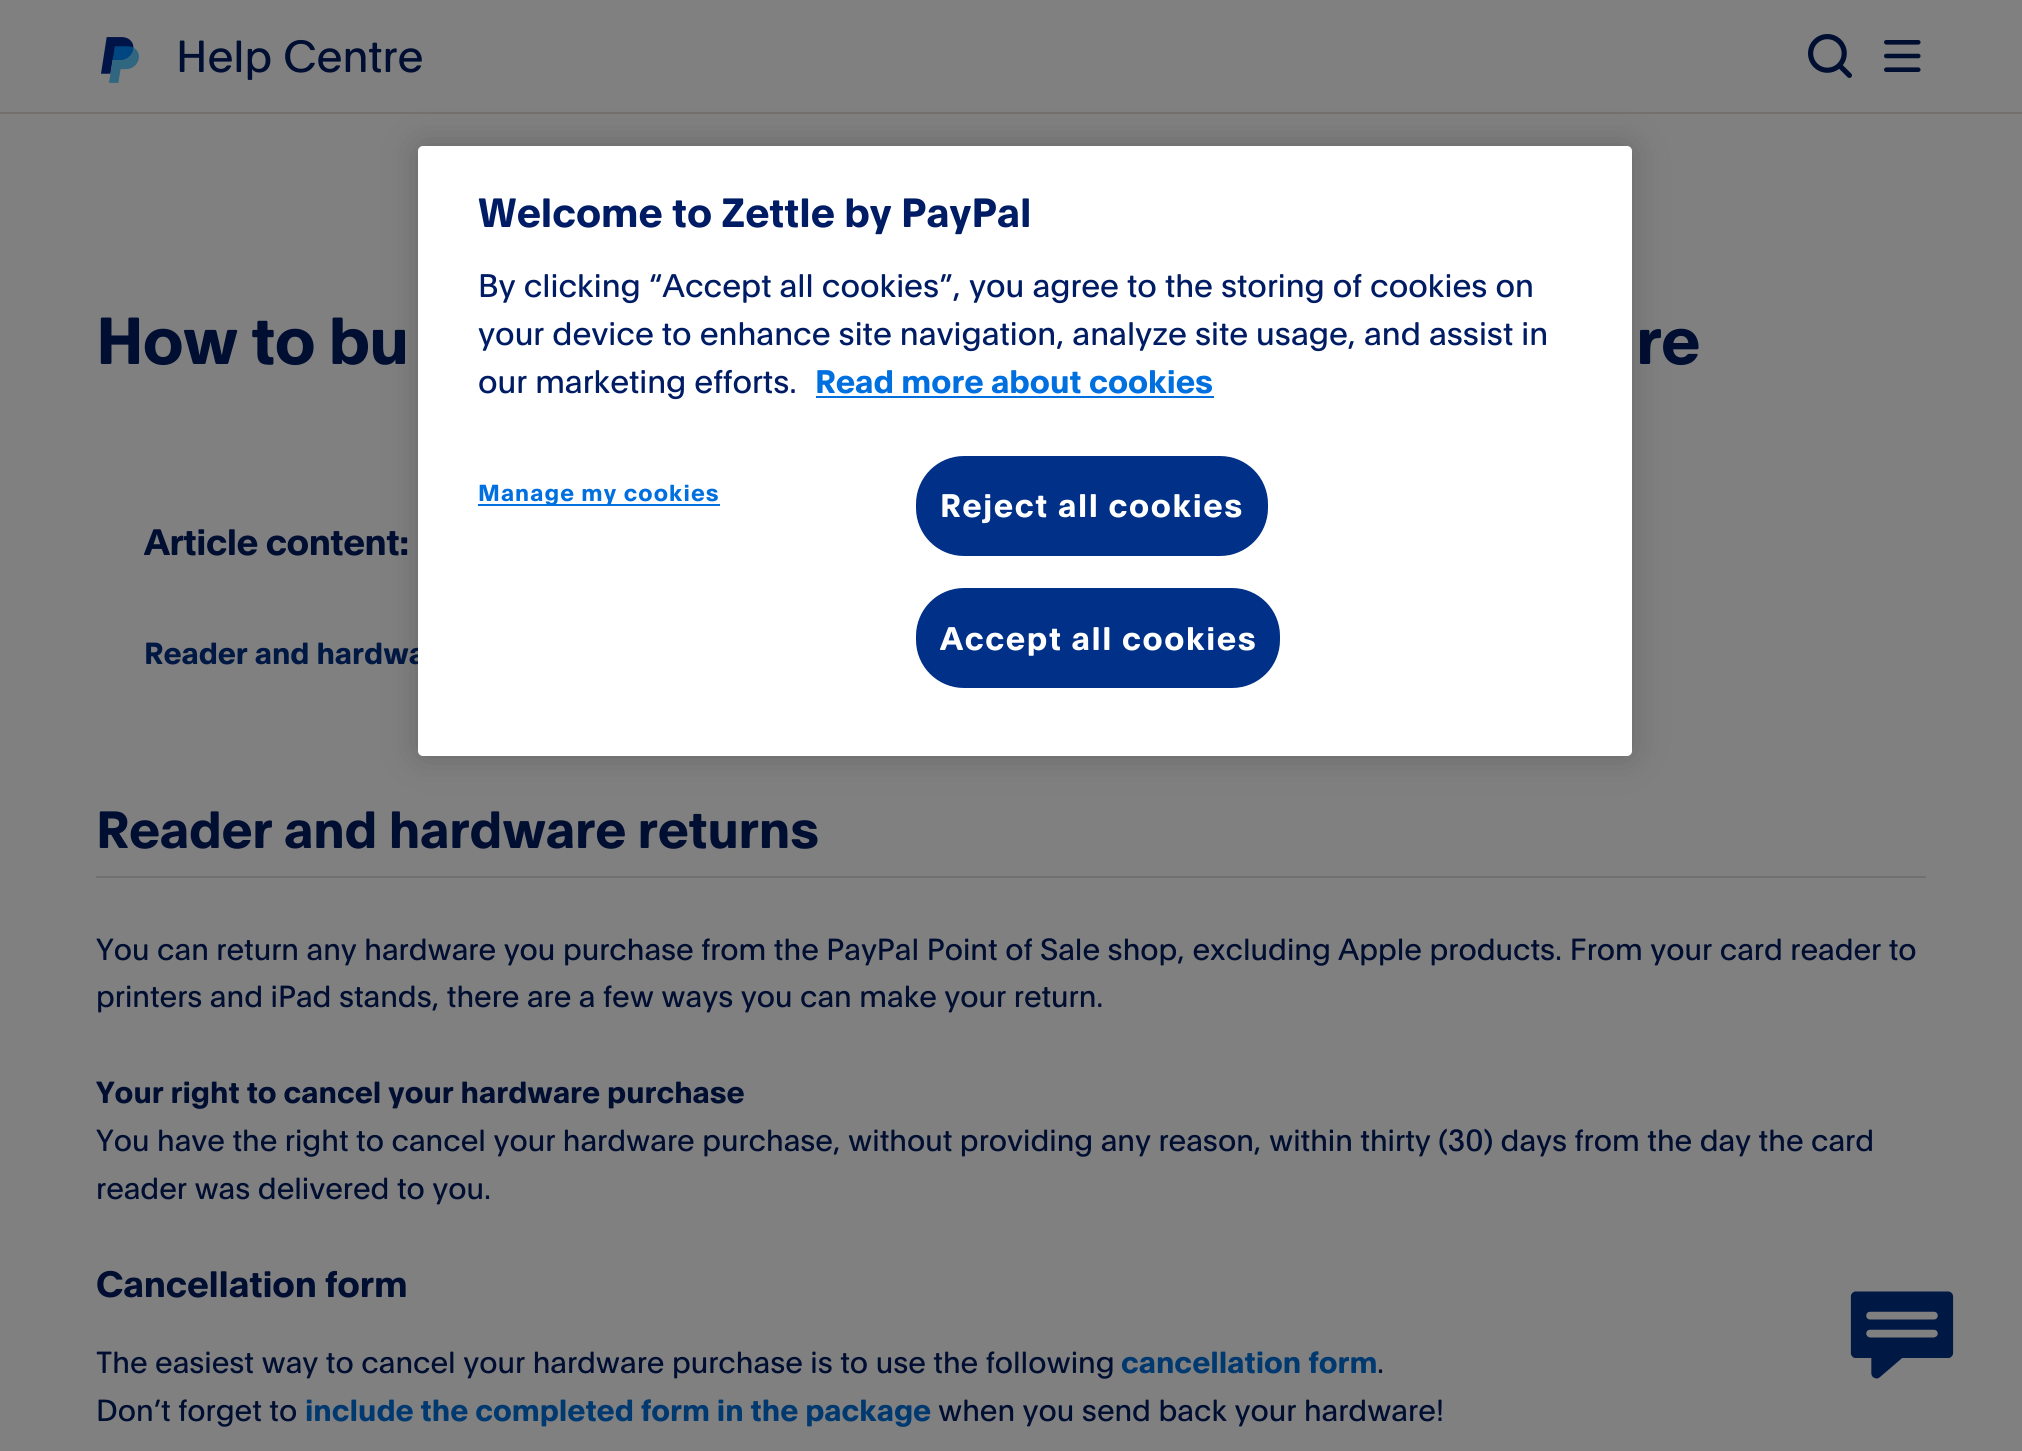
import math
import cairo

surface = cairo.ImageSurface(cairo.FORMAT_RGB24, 2022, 1451)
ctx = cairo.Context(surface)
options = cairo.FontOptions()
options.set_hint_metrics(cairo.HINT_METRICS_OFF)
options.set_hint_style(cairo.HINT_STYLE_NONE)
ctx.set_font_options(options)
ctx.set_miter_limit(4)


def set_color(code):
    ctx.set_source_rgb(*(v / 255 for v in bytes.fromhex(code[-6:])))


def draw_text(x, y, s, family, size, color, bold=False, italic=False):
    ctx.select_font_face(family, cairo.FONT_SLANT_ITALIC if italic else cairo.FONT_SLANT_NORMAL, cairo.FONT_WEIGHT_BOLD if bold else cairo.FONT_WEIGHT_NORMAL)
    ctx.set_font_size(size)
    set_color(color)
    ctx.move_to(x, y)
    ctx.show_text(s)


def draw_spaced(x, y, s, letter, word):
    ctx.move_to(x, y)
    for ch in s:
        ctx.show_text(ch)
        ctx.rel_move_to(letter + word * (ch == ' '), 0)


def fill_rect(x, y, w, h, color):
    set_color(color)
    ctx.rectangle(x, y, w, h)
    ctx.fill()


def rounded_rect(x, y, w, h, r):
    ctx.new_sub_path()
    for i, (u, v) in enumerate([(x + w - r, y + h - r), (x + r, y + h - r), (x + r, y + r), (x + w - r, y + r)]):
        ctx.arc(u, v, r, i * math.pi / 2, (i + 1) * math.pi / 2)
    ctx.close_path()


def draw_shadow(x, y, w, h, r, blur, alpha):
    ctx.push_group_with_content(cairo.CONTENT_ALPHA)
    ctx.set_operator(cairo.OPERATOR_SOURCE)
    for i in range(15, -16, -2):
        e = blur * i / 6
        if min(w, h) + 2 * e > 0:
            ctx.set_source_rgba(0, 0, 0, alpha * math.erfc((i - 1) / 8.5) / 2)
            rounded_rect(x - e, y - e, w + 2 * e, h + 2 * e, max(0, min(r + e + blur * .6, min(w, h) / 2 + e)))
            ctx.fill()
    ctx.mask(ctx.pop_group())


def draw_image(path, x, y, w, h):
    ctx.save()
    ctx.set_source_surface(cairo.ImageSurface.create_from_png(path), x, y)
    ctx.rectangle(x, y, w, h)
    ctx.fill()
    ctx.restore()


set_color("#808080")
ctx.paint()
fill_rect(0, 112, 2022, 2, "#73706d")
draw_image("assets/img1.png", 101, 37, 38, 46)
draw_text(176, 72, "Help Centre", "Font", 44, "#000e32")
draw_image("assets/img2.png", 1808, 34, 44, 44)
draw_image("assets/img3.png", 1884, 40, 37, 32)
ctx.select_font_face("Font", cairo.FONT_SLANT_NORMAL, cairo.FONT_WEIGHT_BOLD)
ctx.set_font_size(65)
draw_spaced(96, 364, "How to bu", -1, 0)
draw_spaced(1636, 364, "re", -1, 0)
ctx.set_font_size(36)
draw_spaced(144, 555, "Article content:", -0.5, 0)
draw_text(144, 664, "Reader and hardwa", "Font", 29.9, "#001844", bold=True)
fill_rect(96, 876, 1830, 2, "#6f7071")
ctx.set_font_size(51.25)
set_color("#000e32")
draw_spaced(96, 848, "Reader and hardware returns", -0.25, 0)
draw_text(96, 960, "You can return any hardware you purchase from the PayPal Point of Sale shop, excluding Apple products. From your card reader to", "Font", 29.9, "#000e32")
draw_text(96, 1007, "printers and iPad stands, there are a few ways you can make your return.", "Font", 29.9, "#000e32")
draw_text(96, 1103, "Your right to cancel your hardware purchase", "Font", 29.9, "#000e32", bold=True)
draw_text(96, 1151, "You have the right to cancel your hardware purchase, without providing any reason, within thirty (30) days from the day the card", "Font", 29.9, "#000e32")
draw_text(96, 1199, "reader was delivered to you.", "Font", 29.9, "#000e32")
ctx.select_font_face("Font", cairo.FONT_SLANT_NORMAL, cairo.FONT_WEIGHT_BOLD)
ctx.set_font_size(36)
draw_spaced(96, 1297, "Cancellation form", -0.2, 0)
draw_text(96, 1373, "The easiest way to cancel your hardware purchase is to use the following", "Font", 29.9, "#000e32")
draw_text(1121, 1373, "cancellation form", "Font", 29.9, "#003870", bold=True)
draw_text(1377, 1373, ".", "Font", 29.9, "#000e32")
draw_text(96, 1421, "Don’t forget to", "Font", 29.9, "#000e32")
draw_text(305, 1421, "include the completed form in the package", "Font", 29.9, "#003870", bold=True)
draw_text(938, 1421, "when you send back your hardware!", "Font", 29.9, "#000e32")
set_color("#000000")
draw_shadow(418, 146, 1214, 610, 5, 18, 0.2)
set_color("#ffffff")
rounded_rect(418, 146, 1214, 610, 5)
ctx.fill()
draw_text(478, 227, "Welcome to Zettle by PayPal", "Font", 40, "#001c64", bold=True)
draw_text(478, 297, "By clicking “Accept all cookies”, you agree to the storing of cookies on", "Font", 32, "#001c64")
draw_text(478, 345, "your device to enhance site navigation, analyze site usage, and assist in", "Font", 32, "#001c64")
draw_text(478, 393, "our marketing efforts.", "Font", 32, "#001c64")
draw_text(815, 393, "Read more about cookies", "Font", 32, "#0070e0", bold=True)
fill_rect(816, 396, 398, 2, "#0070e0")
fill_rect(478, 504, 242, 2, "#0070e0")
ctx.set_font_size(22.75)
draw_spaced(478, 501, "Manage my cookies", 1.1, 0)
set_color("#003087")
rounded_rect(918, 458, 348, 96, 46)
ctx.fill_preserve()
ctx.set_line_width(4)
ctx.stroke()
ctx.set_font_size(32)
set_color("#ffffff")
draw_spaced(940, 517, "Reject all cookies", 1.6, 0)
set_color("#003087")
rounded_rect(918, 590, 360, 96, 46)
ctx.fill_preserve()
ctx.stroke()
set_color("#ffffff")
draw_spaced(940, 650, "Accept all cookies", 1.6, 0)
draw_image("assets/img4.png", 1827, 1291, 155, 121)
surface.write_to_png("output.png")
